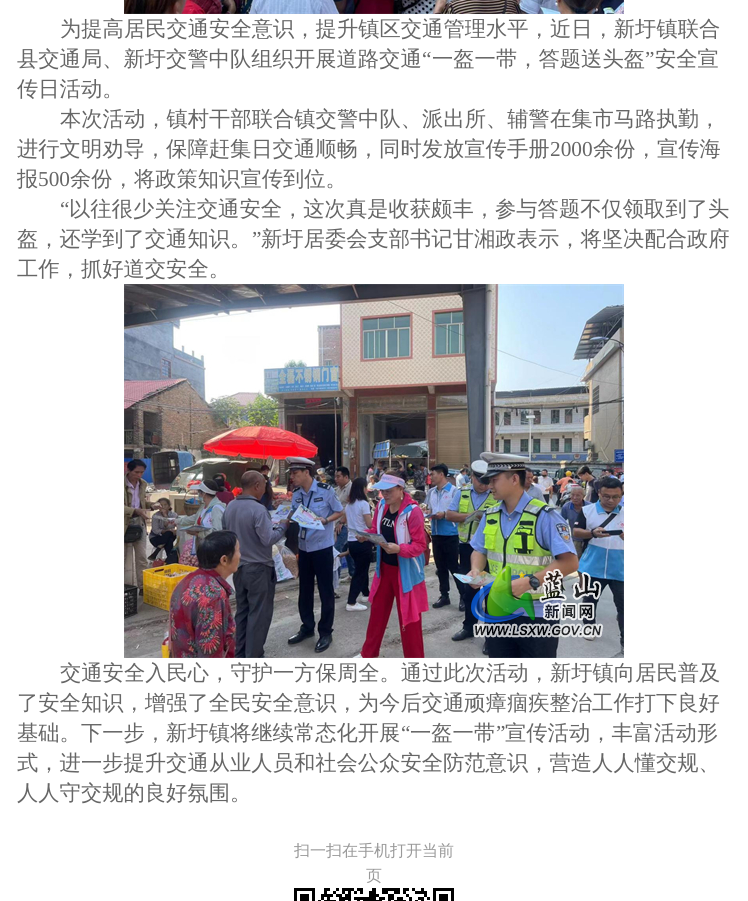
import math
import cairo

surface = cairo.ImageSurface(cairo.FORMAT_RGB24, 748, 901)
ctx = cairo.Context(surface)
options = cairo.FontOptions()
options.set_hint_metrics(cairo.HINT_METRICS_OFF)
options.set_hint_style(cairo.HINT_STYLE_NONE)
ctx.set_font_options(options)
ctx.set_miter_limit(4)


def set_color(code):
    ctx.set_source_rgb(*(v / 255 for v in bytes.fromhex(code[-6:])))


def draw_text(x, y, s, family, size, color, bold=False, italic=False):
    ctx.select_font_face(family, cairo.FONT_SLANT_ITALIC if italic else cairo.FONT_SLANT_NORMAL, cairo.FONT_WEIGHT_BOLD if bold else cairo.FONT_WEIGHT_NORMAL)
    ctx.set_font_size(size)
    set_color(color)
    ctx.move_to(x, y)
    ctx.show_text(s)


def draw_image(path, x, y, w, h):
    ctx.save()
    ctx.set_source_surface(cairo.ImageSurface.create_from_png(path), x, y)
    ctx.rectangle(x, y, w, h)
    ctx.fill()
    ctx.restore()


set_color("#ffffff")
ctx.paint()
draw_image("assets/img1.png", 124, 0, 500, 14)
draw_text(60, 36, "为提高居民交通安全意识，提升镇区交通管理水平，近日，新圩镇联合", "WenQuanYi Zen Hei Medium", 21.3, "#666666")
draw_text(17, 66, "县交通局、新圩交警中队组织开展道路交通", "WenQuanYi Zen Hei Medium", 21.3, "#666666")
draw_text(422, 66, "“", "Liberation Serif", 21.3, "#666666")
draw_text(432, 66, "一盔一带，答题送头盔", "WenQuanYi Zen Hei Medium", 21.3, "#666666")
draw_text(645, 66, "”", "Liberation Serif", 21.3, "#666666")
draw_text(655, 66, "安全宣", "WenQuanYi Zen Hei Medium", 21.3, "#666666")
draw_text(17, 96, "传日活动。", "WenQuanYi Zen Hei Medium", 21.3, "#666666")
draw_text(60, 126, "本次活动，镇村干部联合镇交警中队、派出所、辅警在集市马路执勤，", "WenQuanYi Zen Hei Medium", 21.3, "#666666")
draw_text(17, 156, "进行文明劝导，保障赶集日交通顺畅，同时发放宣传手册", "WenQuanYi Zen Hei Medium", 21.3, "#666666")
draw_text(550, 156, "2000", "Liberation Serif", 21.3, "#666666")
draw_text(593, 156, "余份，宣传海", "WenQuanYi Zen Hei Medium", 21.3, "#666666")
draw_text(17, 186, "报", "WenQuanYi Zen Hei Medium", 21.3, "#666666")
draw_text(38, 186, "500", "Liberation Serif", 21.3, "#666666")
draw_text(70, 186, "余份，将政策知识宣传到位。", "WenQuanYi Zen Hei Medium", 21.3, "#666666")
draw_text(60, 216, "“", "Liberation Serif", 21.3, "#666666")
draw_text(69, 216, "以往很少关注交通安全，这次真是收获颇丰，参与答题不仅领取到了头", "WenQuanYi Zen Hei Medium", 21.3, "#666666")
draw_text(17, 246, "盔，还学到了交通知识。", "WenQuanYi Zen Hei Medium", 21.3, "#666666")
draw_text(252, 246, "”", "Liberation Serif", 21.3, "#666666")
draw_text(261, 246, "新圩居委会支部书记甘湘政表示，将坚决配合政府", "WenQuanYi Zen Hei Medium", 21.3, "#666666")
draw_text(17, 276, "工作，抓好道交安全。", "WenQuanYi Zen Hei Medium", 21.3, "#666666")
draw_image("assets/img2.png", 124, 284, 500, 374)
draw_text(60, 680, "交通安全入民心，守护一方保周全。通过此次活动，新圩镇向居民普及", "WenQuanYi Zen Hei Medium", 21.3, "#666666")
draw_text(17, 710, "了安全知识，增强了全民安全意识，为今后交通顽瘴痼疾整治工作打下良好", "WenQuanYi Zen Hei Medium", 21.3, "#666666")
draw_text(17, 740, "基础。下一步，新圩镇将继续常态化开展", "WenQuanYi Zen Hei Medium", 21.3, "#666666")
draw_text(401, 740, "“", "Liberation Serif", 21.3, "#666666")
draw_text(410, 740, "一盔一带", "WenQuanYi Zen Hei Medium", 21.3, "#666666")
draw_text(496, 740, "”", "Liberation Serif", 21.3, "#666666")
draw_text(505, 740, "宣传活动，丰富活动形", "WenQuanYi Zen Hei Medium", 21.3, "#666666")
draw_text(17, 770, "式，进一步提升交通从业人员和社会公众安全防范意识，营造人人懂交规、", "WenQuanYi Zen Hei Medium", 21.3, "#666666")
draw_text(17, 800, "人人守交规的良好氛围。", "WenQuanYi Zen Hei Medium", 21.3, "#666666")
draw_text(294, 856, "扫一扫在手机打开当前", "WenQuanYi Zen Hei Medium", 16, "#999999")
draw_text(366, 881, "页", "WenQuanYi Zen Hei Medium", 16, "#999999")
draw_image("assets/img3.png", 294, 888, 160, 13)
surface.write_to_png("output.png")
